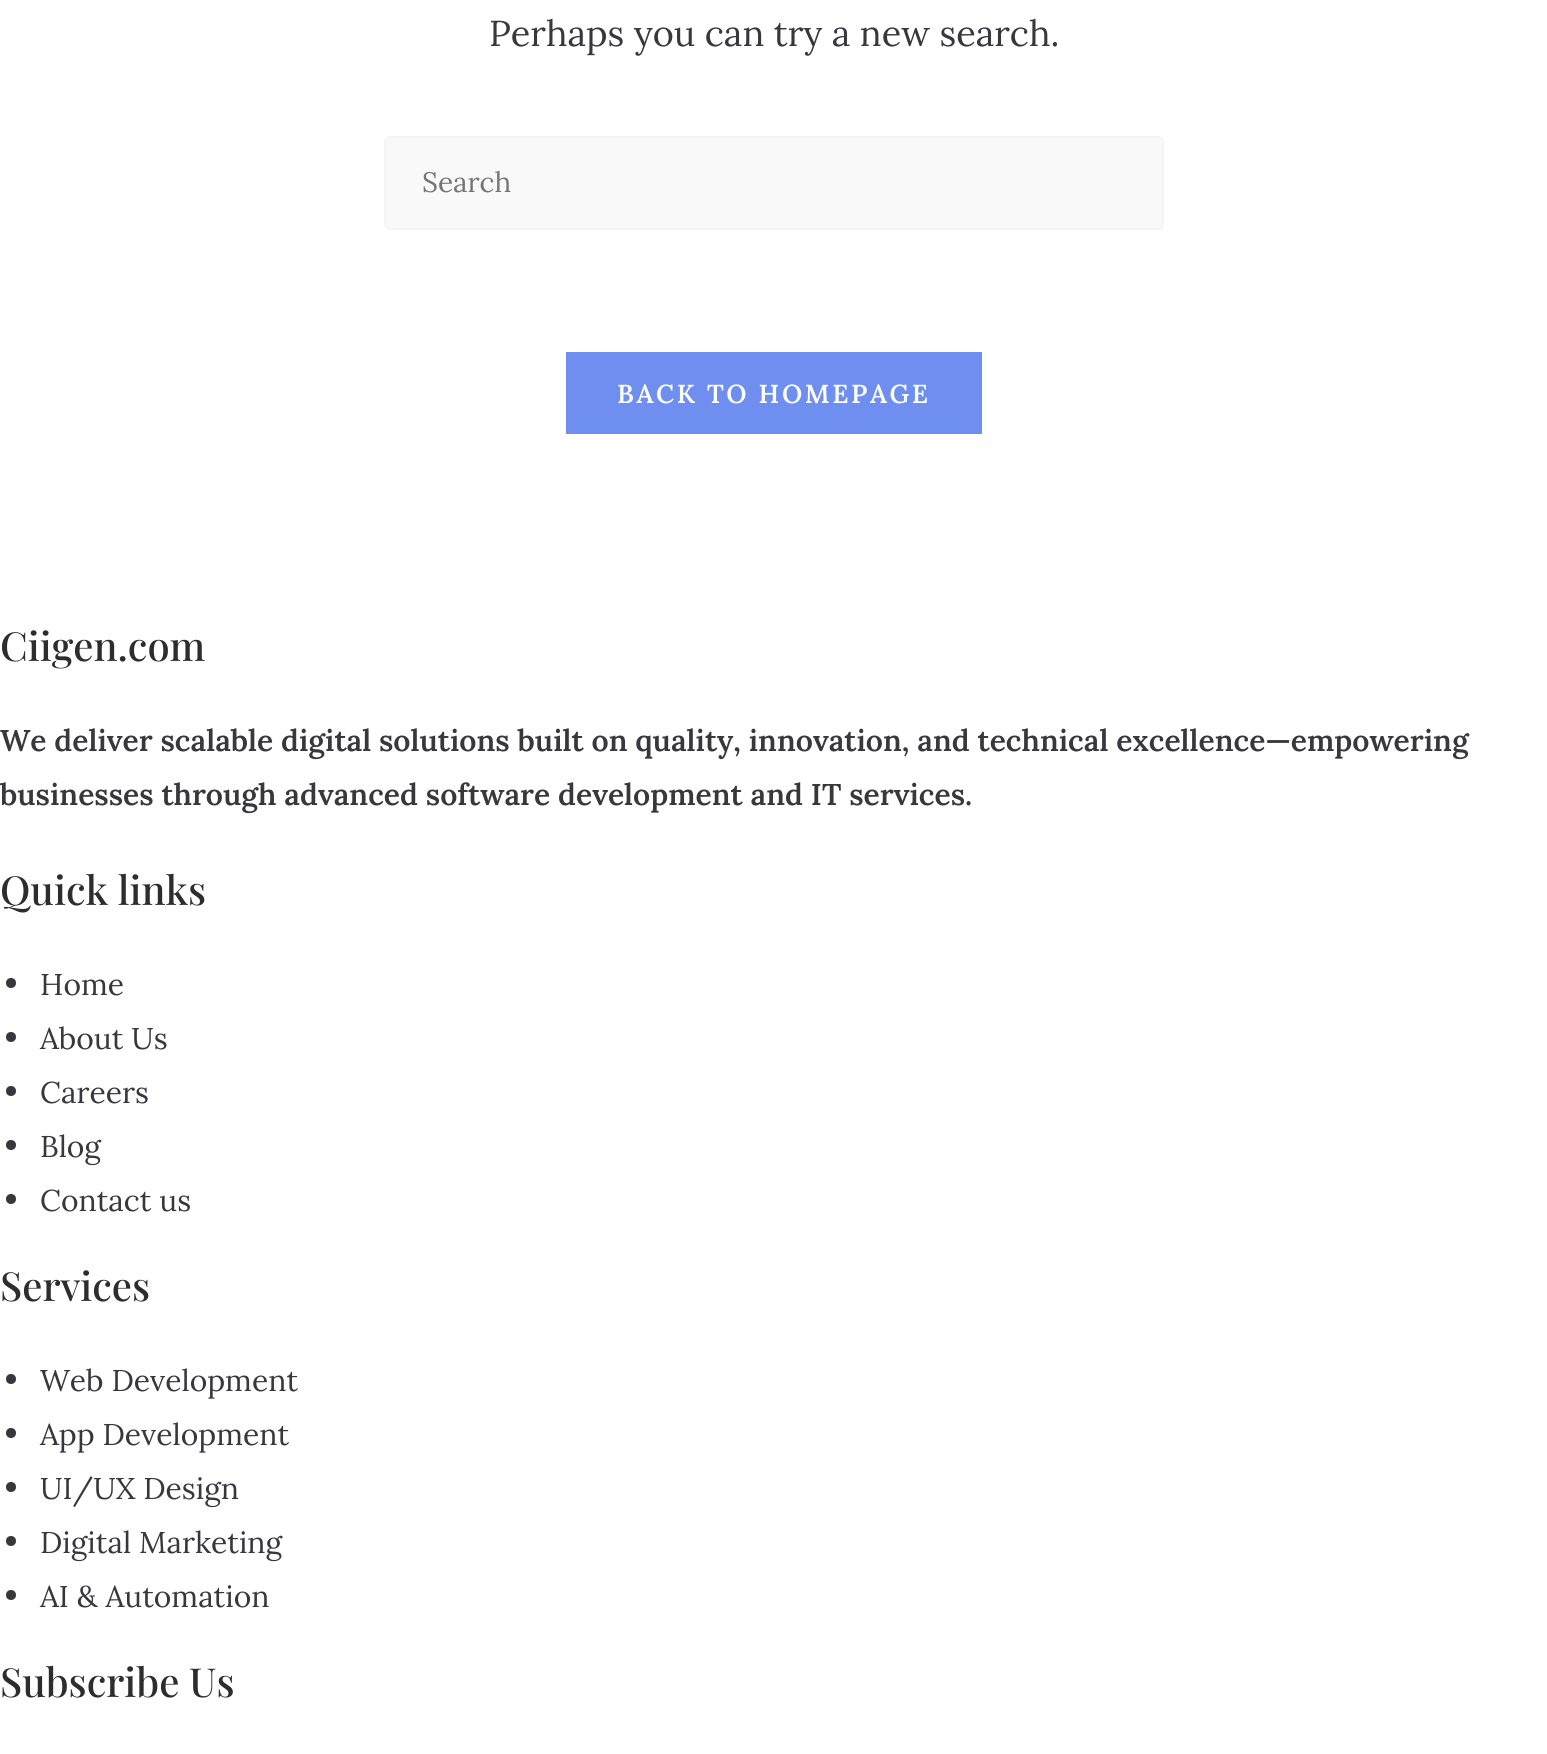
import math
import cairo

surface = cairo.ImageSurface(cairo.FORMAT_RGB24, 1547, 1754)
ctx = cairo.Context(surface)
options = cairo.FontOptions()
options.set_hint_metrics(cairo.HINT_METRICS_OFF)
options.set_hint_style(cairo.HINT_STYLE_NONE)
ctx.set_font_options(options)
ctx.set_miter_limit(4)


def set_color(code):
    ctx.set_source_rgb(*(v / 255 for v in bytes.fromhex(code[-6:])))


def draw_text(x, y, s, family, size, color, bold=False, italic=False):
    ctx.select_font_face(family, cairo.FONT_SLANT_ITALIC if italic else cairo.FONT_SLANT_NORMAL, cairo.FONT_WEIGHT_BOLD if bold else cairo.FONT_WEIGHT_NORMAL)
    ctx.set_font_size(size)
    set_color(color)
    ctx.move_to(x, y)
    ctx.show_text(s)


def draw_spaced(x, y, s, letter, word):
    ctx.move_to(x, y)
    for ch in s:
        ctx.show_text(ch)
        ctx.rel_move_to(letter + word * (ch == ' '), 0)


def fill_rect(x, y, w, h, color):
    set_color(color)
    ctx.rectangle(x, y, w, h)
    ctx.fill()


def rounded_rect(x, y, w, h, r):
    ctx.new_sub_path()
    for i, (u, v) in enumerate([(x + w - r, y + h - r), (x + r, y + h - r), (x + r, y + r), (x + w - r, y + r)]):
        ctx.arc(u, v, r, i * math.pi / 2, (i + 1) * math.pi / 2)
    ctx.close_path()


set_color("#ffffff")
ctx.paint()
draw_text(489, 46, "Perhaps you can try a new search.", "Lora", 36, "#37373d")
set_color("#f9f9f9")
rounded_rect(385, 137, 778, 92, 5)
ctx.fill_preserve()
set_color("#f5f5f5")
ctx.stroke()
draw_text(422, 192, "Search", "Lora", 28, "#757575")
fill_rect(566, 352, 416, 82, "#6e8fef")
ctx.select_font_face("Lora SemiBold")
ctx.set_font_size(26)
set_color("#ffffff")
draw_spaced(617, 403, "BACK TO HOMEPAGE", 2.6, 0)
draw_text(0, 661, "Ciigen.com", "Playfair Display Medium", 40, "#2d2d2d")
draw_text(0, 751, "We deliver scalable digital solutions built on quality, innovation, and technical excellence—empowering", "Lora SemiBold", 30, "#37373d")
draw_text(0, 805, "businesses through advanced software development and IT services.", "Lora SemiBold", 30, "#37373d")
draw_text(0, 905, "Quick links", "Playfair Display Medium", 40, "#2d2d2d")
set_color("#37373d")
ctx.new_path()
ctx.arc(11, 983, 5, 0, 2 * math.pi)
ctx.fill()
draw_text(40, 995, "Home", "Lora", 30, "#37373d")
ctx.new_path()
ctx.arc(11, 1037, 5, 0, 2 * math.pi)
ctx.fill()
draw_text(40, 1049, "About Us", "Lora", 30, "#37373d")
ctx.new_path()
ctx.arc(11, 1091, 5, 0, 2 * math.pi)
ctx.fill()
draw_text(40, 1103, "Careers", "Lora", 30, "#37373d")
ctx.new_path()
ctx.arc(11, 1145, 5, 0, 2 * math.pi)
ctx.fill()
draw_text(40, 1157, "Blog", "Lora", 30, "#37373d")
ctx.new_path()
ctx.arc(11, 1199, 5, 0, 2 * math.pi)
ctx.fill()
draw_text(40, 1211, "Contact us", "Lora", 30, "#37373d")
draw_text(0, 1301, "Services", "Playfair Display Medium", 40, "#2d2d2d")
set_color("#37373d")
ctx.new_path()
ctx.arc(11, 1379, 5, 0, 2 * math.pi)
ctx.fill()
draw_text(40, 1391, "Web Development", "Lora", 30, "#37373d")
ctx.new_path()
ctx.arc(11, 1433, 5, 0, 2 * math.pi)
ctx.fill()
draw_text(40, 1445, "App Development", "Lora", 30, "#37373d")
ctx.new_path()
ctx.arc(11, 1487, 5, 0, 2 * math.pi)
ctx.fill()
draw_text(40, 1499, "UI/UX Design", "Lora", 30, "#37373d")
ctx.new_path()
ctx.arc(11, 1541, 5, 0, 2 * math.pi)
ctx.fill()
draw_text(40, 1553, "Digital Marketing", "Lora", 30, "#37373d")
ctx.new_path()
ctx.arc(11, 1595, 5, 0, 2 * math.pi)
ctx.fill()
draw_text(40, 1607, "AI & Automation", "Lora", 30, "#37373d")
draw_text(0, 1697, "Subscribe Us", "Playfair Display Medium", 40, "#2d2d2d")
surface.write_to_png("output.png")
